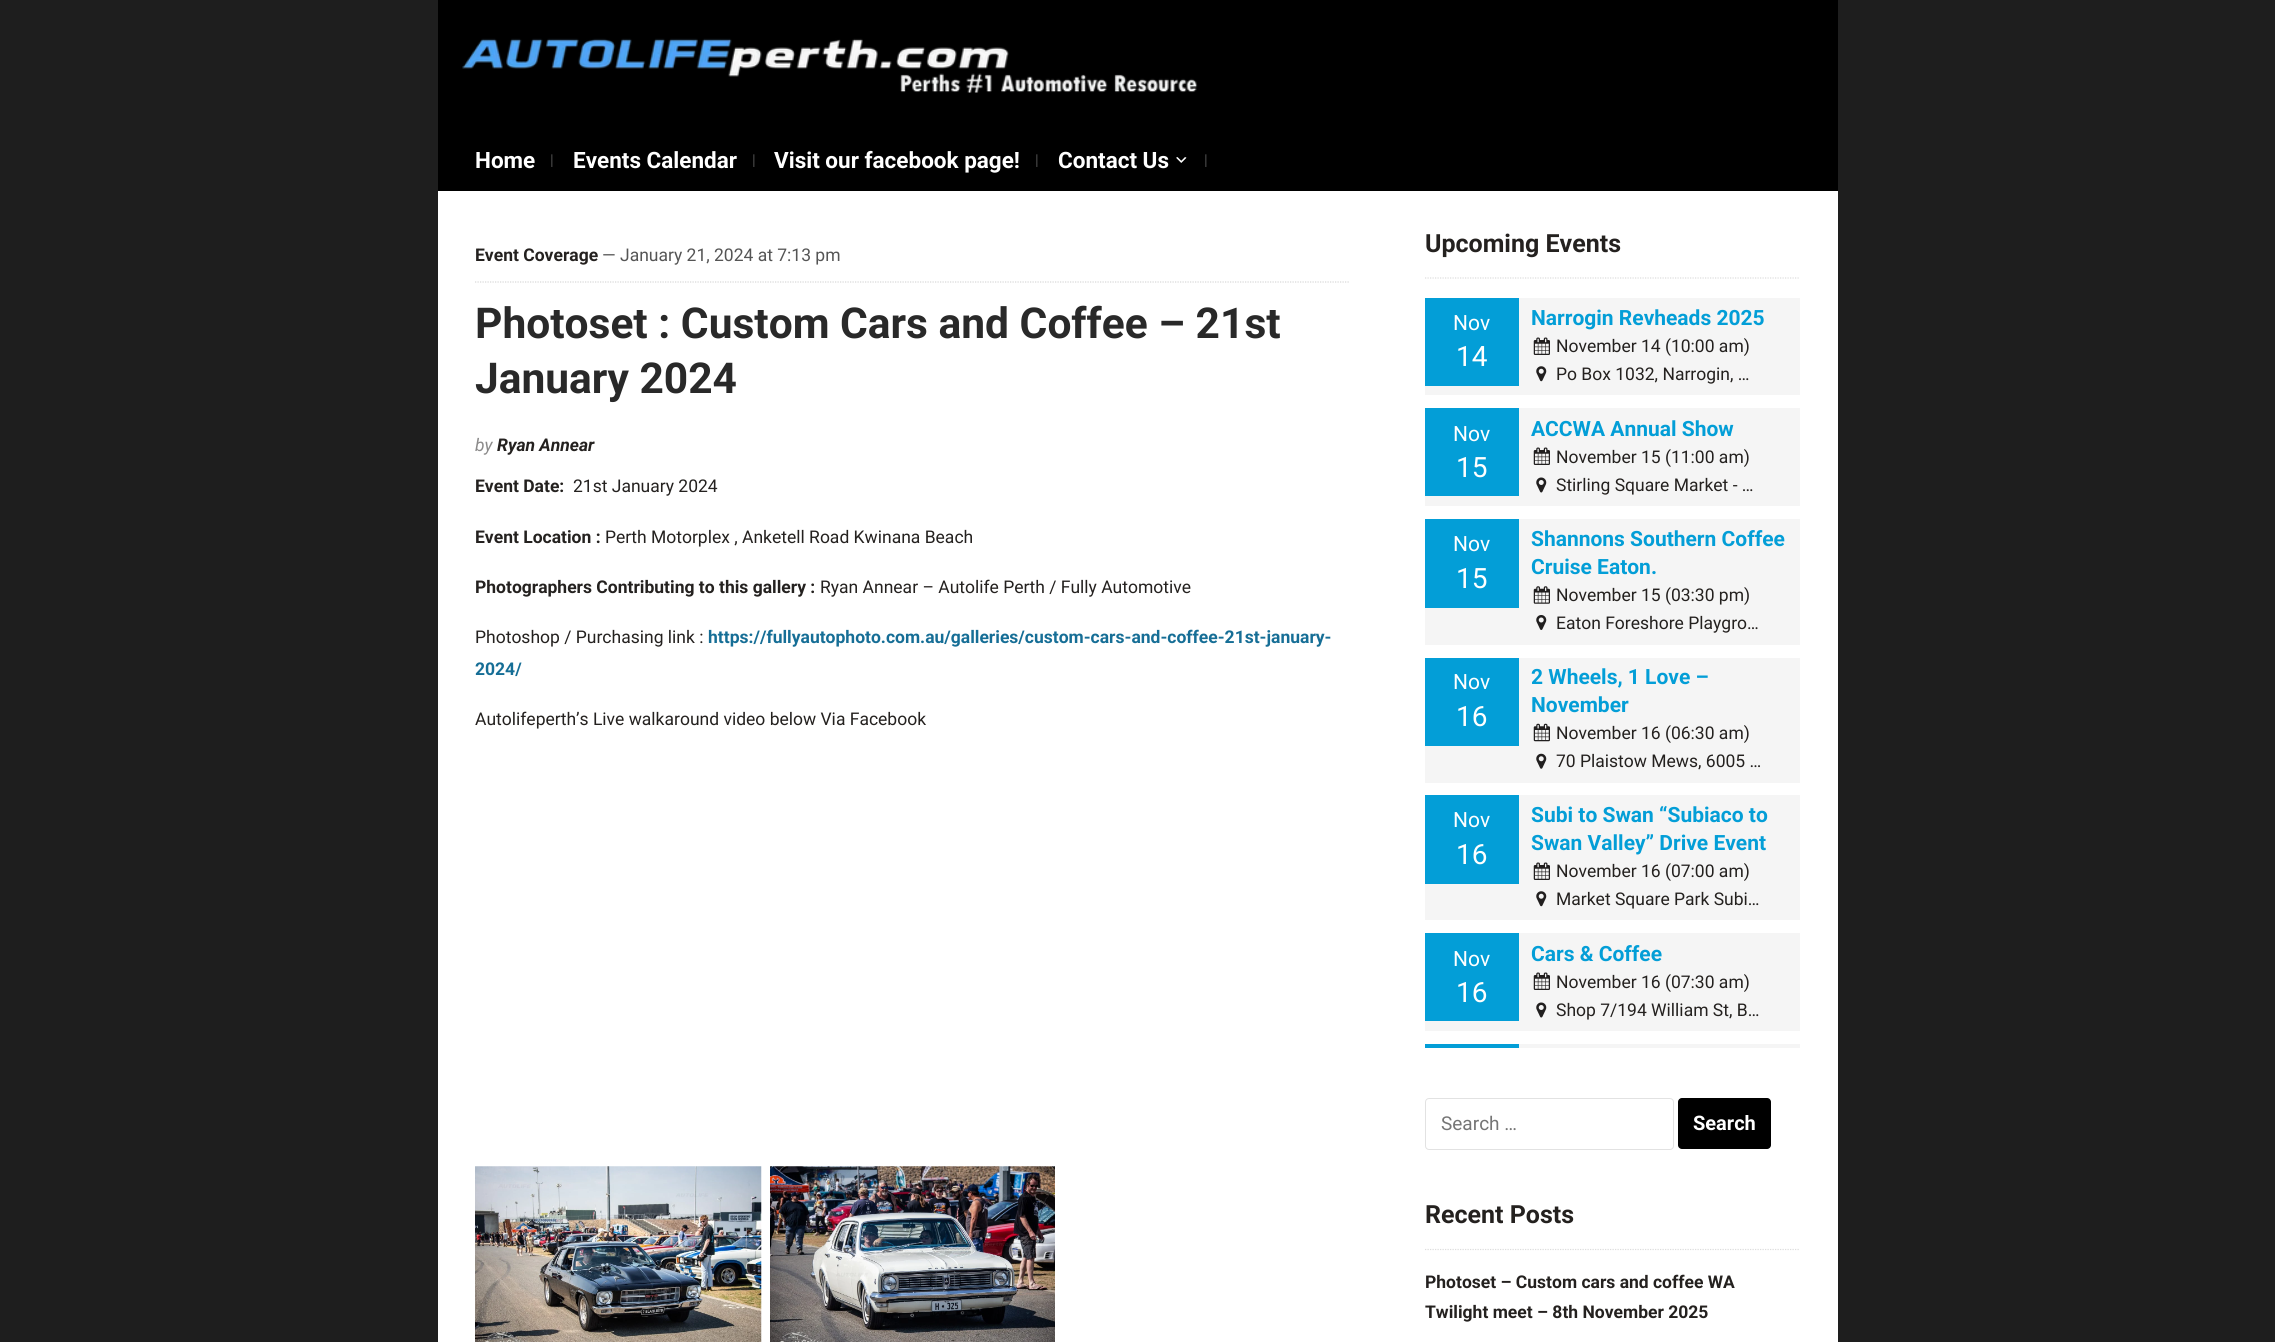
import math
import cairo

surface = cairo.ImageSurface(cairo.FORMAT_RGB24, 2275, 1342)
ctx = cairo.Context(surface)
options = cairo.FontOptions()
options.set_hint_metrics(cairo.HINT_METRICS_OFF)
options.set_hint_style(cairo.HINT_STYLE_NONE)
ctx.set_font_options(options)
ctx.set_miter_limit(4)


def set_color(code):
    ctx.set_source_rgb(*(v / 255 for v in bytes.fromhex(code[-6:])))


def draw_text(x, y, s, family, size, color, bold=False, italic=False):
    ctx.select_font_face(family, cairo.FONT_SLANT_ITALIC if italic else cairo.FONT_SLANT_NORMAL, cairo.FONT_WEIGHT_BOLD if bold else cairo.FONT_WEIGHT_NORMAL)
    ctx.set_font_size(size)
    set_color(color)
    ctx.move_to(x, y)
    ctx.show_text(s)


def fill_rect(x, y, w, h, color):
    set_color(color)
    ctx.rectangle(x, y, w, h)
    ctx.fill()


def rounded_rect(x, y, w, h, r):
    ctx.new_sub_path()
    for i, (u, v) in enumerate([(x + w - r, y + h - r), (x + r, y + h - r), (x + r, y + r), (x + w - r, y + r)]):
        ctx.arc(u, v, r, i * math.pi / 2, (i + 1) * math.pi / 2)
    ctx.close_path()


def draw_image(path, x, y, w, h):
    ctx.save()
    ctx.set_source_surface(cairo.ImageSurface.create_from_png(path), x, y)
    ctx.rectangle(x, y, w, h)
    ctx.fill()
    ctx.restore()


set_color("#1e1e1e")
ctx.paint()
fill_rect(438, 191, 1400, 1151, "#ffffff")
fill_rect(438, 0, 1400, 191, "#000000")
draw_image("assets/img1.png", 462, 38, 736, 55)
draw_text(475, 168, "Home", "Roboto", 22.5, "#ffffff", bold=True)
draw_text(550, 165, "|", "Roboto", 15, "#4d4d4d")
draw_text(573, 168, "Events Calendar", "Roboto", 22.5, "#ffffff", bold=True)
draw_text(752, 165, "|", "Roboto", 15, "#4d4d4d")
draw_text(774, 168, "Visit our facebook page!", "Roboto", 22.5, "#ffffff", bold=True)
draw_text(1035, 165, "|", "Roboto", 15, "#4d4d4d")
draw_text(1058, 168, "Contact Us", "Roboto", 22.5, "#ffffff", bold=True)
draw_image("assets/img2.png", 1176, 157, 11, 6)
draw_text(1204, 165, "|", "Roboto", 15, "#4d4d4d")
ctx.new_path()
ctx.move_to(475, 282)
ctx.line_to(1350, 282)
set_color("#d7d7d7")
ctx.set_line_width(1.2)
ctx.set_dash([1.25, 1.25])
ctx.stroke()
draw_text(475, 261, "Event Coverage", "Roboto", 17.5, "#24211f", bold=True)
draw_text(602, 261, "— January 21, 2024 at 7:13 pm", "Roboto", 17.5, "#555555")
draw_text(475, 338, "Photoset : Custom Cars and Coffee – 21st", "Roboto", 42.5, "#292929", bold=True)
draw_text(475, 393, "January 2024", "Roboto", 42.5, "#292929", bold=True)
draw_text(475, 451, "by", "Roboto", 17.5, "#8b8a8a", italic=True)
draw_text(497, 451, "Ryan Annear", "Roboto", 17.5, "#24211f", bold=True, italic=True)
draw_text(475, 492, "Event Date:", "Roboto", 17.5, "#24211f", bold=True)
draw_text(573, 492, "21st January 2024", "Roboto", 17.5, "#24211f")
draw_text(475, 543, "Event Location :", "Roboto", 17.5, "#24211f", bold=True)
draw_text(605, 543, "Perth Motorplex , Anketell Road Kwinana Beach", "Roboto", 17.5, "#24211f")
draw_text(475, 593, "Photographers Contributing to this gallery :", "Roboto", 17.5, "#24211f", bold=True)
draw_text(820, 593, "Ryan Annear – Autolife Perth / Fully Automotive", "Roboto", 17.5, "#24211f")
draw_text(475, 643, "Photoshop / Purchasing link :", "Roboto", 17.5, "#24211f")
draw_text(708, 643, "https://fullyautophoto.com.au/galleries/custom-cars-and-coffee-21st-january-", "Roboto", 17.5, "#166e96", bold=True)
draw_text(475, 675, "2024/", "Roboto", 17.5, "#166e96", bold=True)
draw_text(475, 725, "Autolifeperth’s Live walkaround video below Via Facebook", "Roboto", 17.5, "#24211f")
draw_image("assets/img3.png", 475, 1166, 287, 176)
draw_image("assets/img4.png", 770, 1166, 285, 176)
ctx.new_path()
ctx.move_to(1425, 278)
ctx.line_to(1800, 278)
set_color("#dddddd")
ctx.stroke()
draw_text(1425, 252, "Upcoming Events", "Roboto", 25, "#24211f", bold=True)
fill_rect(1425, 298, 375, 97, "#f5f5f5")
fill_rect(1425, 298, 94, 88, "#039ed7")
draw_text(1453, 330, "Nov", "Roboto", 21, "#ffffff")
draw_text(1456, 366, "14", "Roboto", 28, "#ffffff")
draw_text(1531, 325, "Narrogin Revheads 2025", "Roboto", 21, "#039ed7", bold=True)
draw_image("assets/img5.png", 1533, 337, 17, 18)
draw_text(1556, 352, "November 14 (10:00 am)", "Roboto", 17.5, "#24211f")
draw_image("assets/img6.png", 1536, 366, 11, 16)
draw_text(1556, 380, "Po Box 1032, Narrogin, …", "Roboto", 17.5, "#24211f")
fill_rect(1425, 408, 375, 98, "#f5f5f5")
fill_rect(1425, 408, 94, 88, "#039ed7")
draw_text(1453, 441, "Nov", "Roboto", 21, "#ffffff")
draw_text(1456, 477, "15", "Roboto", 28, "#ffffff")
draw_text(1531, 436, "ACCWA Annual Show", "Roboto", 21, "#039ed7", bold=True)
draw_image("assets/img5.png", 1533, 447, 17, 18)
draw_text(1556, 463, "November 15 (11:00 am)", "Roboto", 17.5, "#24211f")
draw_image("assets/img7.png", 1536, 477, 11, 16)
draw_text(1556, 491, "Stirling Square Market - …", "Roboto", 17.5, "#24211f")
fill_rect(1425, 519, 375, 126, "#f5f5f5")
fill_rect(1425, 519, 94, 89, "#039ed7")
draw_text(1453, 551, "Nov", "Roboto", 21, "#ffffff")
draw_text(1456, 588, "15", "Roboto", 28, "#ffffff")
draw_text(1531, 546, "Shannons Southern Coffee", "Roboto", 21, "#039ed7", bold=True)
draw_text(1531, 574, "Cruise Eaton.", "Roboto", 21, "#039ed7", bold=True)
draw_image("assets/img8.png", 1533, 586, 17, 18)
draw_text(1556, 601, "November 15 (03:30 pm)", "Roboto", 17.5, "#24211f")
draw_image("assets/img9.png", 1536, 615, 11, 15)
draw_text(1556, 629, "Eaton Foreshore Playgro…", "Roboto", 17.5, "#24211f")
fill_rect(1425, 658, 375, 125, "#f5f5f5")
fill_rect(1425, 658, 94, 88, "#039ed7")
draw_text(1453, 689, "Nov", "Roboto", 21, "#ffffff")
draw_text(1456, 726, "16", "Roboto", 28, "#ffffff")
draw_text(1531, 684, "2 Wheels, 1 Love –", "Roboto", 21, "#039ed7", bold=True)
draw_text(1531, 712, "November", "Roboto", 21, "#039ed7", bold=True)
draw_image("assets/img10.png", 1533, 723, 17, 19)
draw_text(1556, 739, "November 16 (06:30 am)", "Roboto", 17.5, "#24211f")
draw_image("assets/img11.png", 1536, 753, 11, 16)
draw_text(1556, 767, "70 Plaistow Mews, 6005 …", "Roboto", 17.5, "#24211f")
fill_rect(1425, 795, 375, 125, "#f5f5f5")
fill_rect(1425, 795, 94, 89, "#039ed7")
draw_text(1453, 827, "Nov", "Roboto", 21, "#ffffff")
draw_text(1456, 864, "16", "Roboto", 28, "#ffffff")
draw_text(1531, 822, "Subi to Swan “Subiaco to", "Roboto", 21, "#039ed7", bold=True)
draw_text(1531, 850, "Swan Valley” Drive Event", "Roboto", 21, "#039ed7", bold=True)
draw_image("assets/img5.png", 1533, 862, 17, 18)
draw_text(1556, 877, "November 16 (07:00 am)", "Roboto", 17.5, "#24211f")
draw_image("assets/img6.png", 1536, 891, 11, 16)
draw_text(1556, 905, "Market Square Park Subi…", "Roboto", 17.5, "#24211f")
fill_rect(1425, 933, 375, 98, "#f5f5f5")
fill_rect(1425, 933, 94, 88, "#039ed7")
draw_text(1453, 966, "Nov", "Roboto", 21, "#ffffff")
draw_text(1456, 1002, "16", "Roboto", 28, "#ffffff")
draw_text(1531, 961, "Cars & Coffee", "Roboto", 21, "#039ed7", bold=True)
draw_image("assets/img5.png", 1533, 972, 17, 18)
draw_text(1556, 988, "November 16 (07:30 am)", "Roboto", 17.5, "#24211f")
draw_image("assets/img7.png", 1536, 1002, 11, 16)
draw_text(1556, 1016, "Shop 7/194 William St, B…", "Roboto", 17.5, "#24211f")
fill_rect(1519, 1044, 281, 4, "#f5f5f5")
fill_rect(1425, 1044, 94, 4, "#039ed7")
rounded_rect(1425.5, 1098.5, 248, 51, 3.5)
set_color("#e2e2e2")
ctx.set_line_width(1)
ctx.set_dash([])
ctx.stroke()
draw_text(1441, 1130, "Search …", "Roboto", 19, "#757575")
set_color("#000000")
rounded_rect(1678, 1098, 93, 51, 4)
ctx.fill()
draw_text(1693, 1130, "Search", "Roboto", 20, "#ffffff", bold=True)
ctx.new_path()
ctx.move_to(1425, 1249.5)
ctx.line_to(1800, 1249.5)
set_color("#dddddd")
ctx.set_line_width(1.2)
ctx.set_dash([1.25, 1.25])
ctx.stroke()
draw_text(1425, 1223, "Recent Posts", "Roboto", 25, "#24211f", bold=True)
draw_text(1425, 1288, "Photoset – Custom cars and coffee WA", "Roboto", 17.5, "#24211f", bold=True)
draw_text(1425, 1318, "Twilight meet – 8th November 2025", "Roboto", 17.5, "#24211f", bold=True)
surface.write_to_png("output.png")
